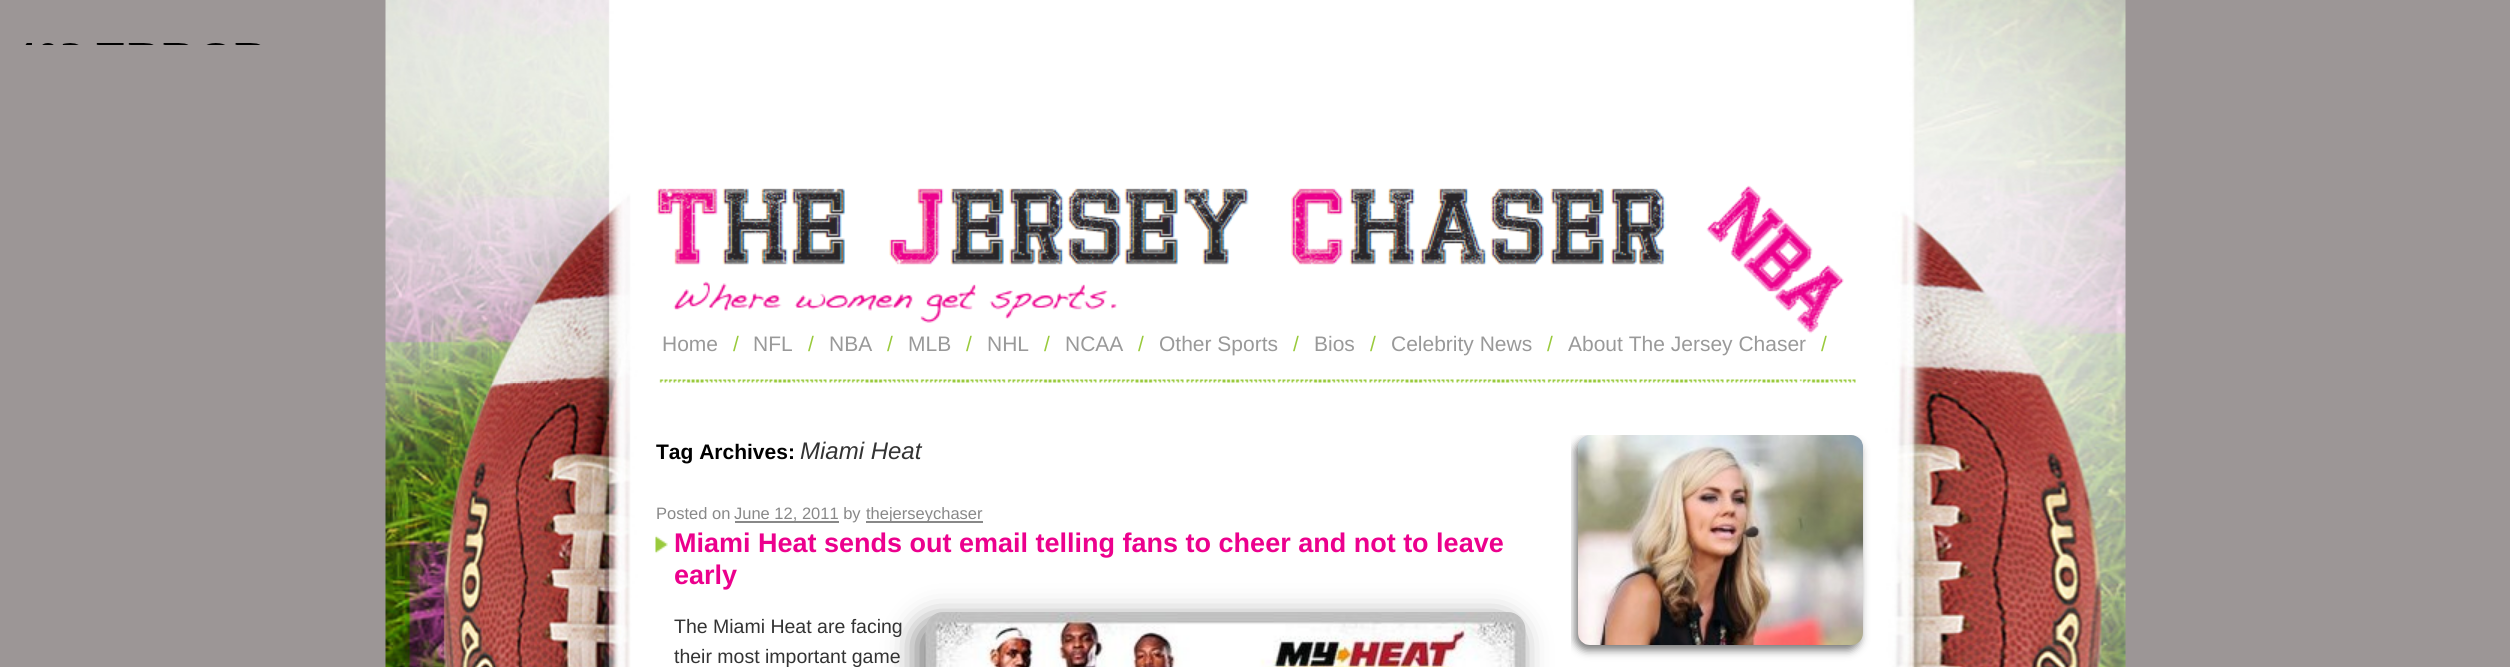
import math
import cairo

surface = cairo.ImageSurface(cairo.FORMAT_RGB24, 2510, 667)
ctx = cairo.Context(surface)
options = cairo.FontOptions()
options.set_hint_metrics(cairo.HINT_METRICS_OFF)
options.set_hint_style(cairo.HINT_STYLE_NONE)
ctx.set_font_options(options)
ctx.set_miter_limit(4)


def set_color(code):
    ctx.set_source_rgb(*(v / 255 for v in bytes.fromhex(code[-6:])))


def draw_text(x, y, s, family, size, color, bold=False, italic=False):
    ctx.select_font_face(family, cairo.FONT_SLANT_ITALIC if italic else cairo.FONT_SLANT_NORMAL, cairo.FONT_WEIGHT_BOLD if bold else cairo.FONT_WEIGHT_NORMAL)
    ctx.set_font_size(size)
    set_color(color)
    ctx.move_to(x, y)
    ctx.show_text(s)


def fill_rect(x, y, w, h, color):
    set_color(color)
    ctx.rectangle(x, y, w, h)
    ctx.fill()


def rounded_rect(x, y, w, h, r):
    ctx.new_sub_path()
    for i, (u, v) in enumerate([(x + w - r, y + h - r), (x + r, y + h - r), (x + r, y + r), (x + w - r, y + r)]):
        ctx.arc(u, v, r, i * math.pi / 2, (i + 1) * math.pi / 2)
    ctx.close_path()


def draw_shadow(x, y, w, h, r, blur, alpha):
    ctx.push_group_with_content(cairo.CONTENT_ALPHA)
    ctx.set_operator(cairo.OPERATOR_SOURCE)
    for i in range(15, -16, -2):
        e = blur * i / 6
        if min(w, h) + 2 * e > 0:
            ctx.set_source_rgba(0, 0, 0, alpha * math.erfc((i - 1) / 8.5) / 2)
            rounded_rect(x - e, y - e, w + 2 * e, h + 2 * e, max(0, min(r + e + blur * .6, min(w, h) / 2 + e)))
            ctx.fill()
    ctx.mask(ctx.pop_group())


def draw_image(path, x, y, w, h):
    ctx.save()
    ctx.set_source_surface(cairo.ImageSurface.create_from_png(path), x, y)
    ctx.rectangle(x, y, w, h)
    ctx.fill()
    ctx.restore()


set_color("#9c9696")
ctx.paint()
draw_image("assets/img1.png", 385, 0, 1741, 667)
draw_image("assets/img2.png", 25, 43, 236, 2)
draw_image("assets/img3.png", 656, 188, 1200, 195)
draw_image("assets/img4.png", 1706, 185, 138, 149)
draw_text(662, 351, "Home", "Liberation Sans", 21, "#999999")
draw_text(733, 351, "/", "Liberation Sans", 21, "#99ca3c")
draw_text(753, 351, "NFL", "Liberation Sans", 21, "#999999")
draw_text(808, 351, "/", "Liberation Sans", 21, "#99ca3c")
draw_text(829, 351, "NBA", "Liberation Sans", 21, "#999999")
draw_text(887, 351, "/", "Liberation Sans", 21, "#99ca3c")
draw_text(908, 351, "MLB", "Liberation Sans", 21, "#999999")
draw_text(966, 351, "/", "Liberation Sans", 21, "#99ca3c")
draw_text(987, 351, "NHL", "Liberation Sans", 21, "#999999")
draw_text(1044, 351, "/", "Liberation Sans", 21, "#99ca3c")
draw_text(1065, 351, "NCAA", "Liberation Sans", 21, "#999999")
draw_text(1138, 351, "/", "Liberation Sans", 21, "#99ca3c")
draw_text(1159, 351, "Other Sports", "Liberation Sans", 21, "#999999")
draw_text(1293, 351, "/", "Liberation Sans", 21, "#99ca3c")
draw_text(1314, 351, "Bios", "Liberation Sans", 21, "#999999")
draw_text(1370, 351, "/", "Liberation Sans", 21, "#99ca3c")
draw_text(1391, 351, "Celebrity News", "Liberation Sans", 21, "#999999")
draw_text(1547, 351, "/", "Liberation Sans", 21, "#99ca3c")
draw_text(1568, 351, "About The Jersey Chaser", "Liberation Sans", 21, "#999999")
draw_text(1821, 351, "/", "Liberation Sans", 21, "#99ca3c")
draw_text(656, 459, "Tag Archives:", "Liberation Sans", 21, "#000000", bold=True)
draw_text(800, 459, "Miami Heat", "Liberation Sans", 24, "#333333", italic=True)
draw_text(656, 519, "Posted on", "Liberation Sans", 16.5, "#888888")
fill_rect(735, 521, 104, 2, "#888888")
draw_text(734, 519, "June 12, 2011 by", "Liberation Sans", 16.5, "#888888")
fill_rect(866, 521, 117, 2, "#888888")
draw_text(866, 519, "thejerseychaser", "Liberation Sans", 16.5, "#888888")
draw_image("assets/img5.png", 655, 535, 13, 19)
draw_text(674, 552, "Miami Heat sends out email telling fans to cheer and not to leave", "Liberation Sans", 27, "#ec008d", bold=True)
draw_text(674, 584, "early", "Liberation Sans", 27, "#ec008d", bold=True)
set_color("#777777")
draw_shadow(917, 621, 600, 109, 18, 15, 1)
draw_text(674, 633, "The Miami Heat are facing", "Liberation Sans", 19.5, "#333333")
draw_text(674, 663, "their most important game", "Liberation Sans", 19.5, "#333333")
draw_image("assets/img6.png", 925, 612, 601, 55)
ctx.save()
ctx.rectangle(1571, 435, 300, 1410)
ctx.clip()
set_color("#777777")
draw_shadow(1575, 440, 285, 210, 12, 4.5, 1)
ctx.restore()
draw_image("assets/img7.png", 1578, 435, 285, 210)
surface.write_to_png("output.png")
